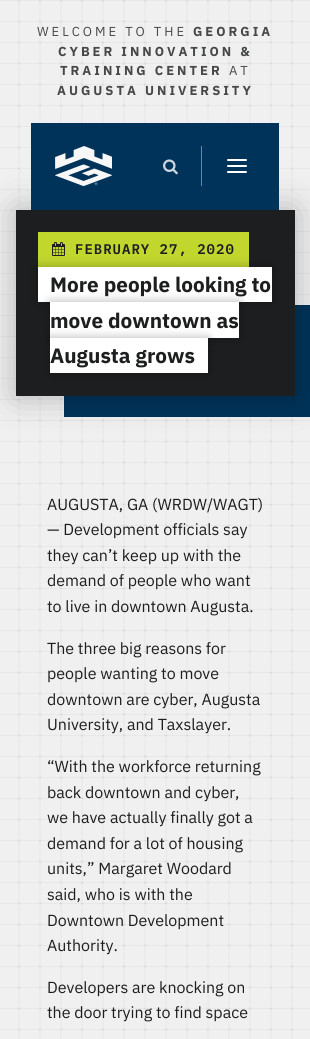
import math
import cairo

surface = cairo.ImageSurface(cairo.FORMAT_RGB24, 310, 1039)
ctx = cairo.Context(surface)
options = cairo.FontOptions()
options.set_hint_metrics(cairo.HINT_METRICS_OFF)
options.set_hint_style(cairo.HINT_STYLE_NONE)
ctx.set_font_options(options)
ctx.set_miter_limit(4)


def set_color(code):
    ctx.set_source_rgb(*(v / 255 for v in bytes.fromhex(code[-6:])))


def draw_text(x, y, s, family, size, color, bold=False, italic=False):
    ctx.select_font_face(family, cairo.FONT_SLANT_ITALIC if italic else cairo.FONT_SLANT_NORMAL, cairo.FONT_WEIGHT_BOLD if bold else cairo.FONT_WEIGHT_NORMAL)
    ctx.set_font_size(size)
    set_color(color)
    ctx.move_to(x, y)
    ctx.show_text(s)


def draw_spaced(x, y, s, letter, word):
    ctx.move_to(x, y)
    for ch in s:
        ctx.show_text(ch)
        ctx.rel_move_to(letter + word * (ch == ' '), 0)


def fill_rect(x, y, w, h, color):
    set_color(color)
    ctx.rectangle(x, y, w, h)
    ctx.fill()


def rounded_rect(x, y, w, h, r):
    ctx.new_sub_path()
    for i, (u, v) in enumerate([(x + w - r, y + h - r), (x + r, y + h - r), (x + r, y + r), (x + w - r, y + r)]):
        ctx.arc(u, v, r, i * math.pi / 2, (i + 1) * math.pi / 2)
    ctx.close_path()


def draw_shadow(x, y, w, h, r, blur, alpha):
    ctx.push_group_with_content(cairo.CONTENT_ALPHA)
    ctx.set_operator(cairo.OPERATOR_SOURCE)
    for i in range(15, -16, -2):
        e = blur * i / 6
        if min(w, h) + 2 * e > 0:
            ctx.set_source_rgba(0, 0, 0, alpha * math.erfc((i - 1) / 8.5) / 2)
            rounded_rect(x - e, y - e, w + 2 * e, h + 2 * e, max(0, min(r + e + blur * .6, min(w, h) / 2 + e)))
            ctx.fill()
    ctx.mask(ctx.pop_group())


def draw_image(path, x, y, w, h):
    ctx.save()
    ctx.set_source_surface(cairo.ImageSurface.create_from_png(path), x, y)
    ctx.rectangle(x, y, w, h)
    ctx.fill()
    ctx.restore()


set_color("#ffffff")
ctx.paint()
draw_image("assets/img1.png", 0, 0, 310, 1039)
ctx.select_font_face("IBM Plex Sans")
ctx.set_font_size(13)
set_color("#474849")
draw_spaced(37, 36, "WELCOME TO THE", 3, 0)
ctx.select_font_face("IBM Plex Sans", cairo.FONT_SLANT_NORMAL, cairo.FONT_WEIGHT_BOLD)
draw_spaced(193, 36, "GEORGIA", 3, 0)
draw_spaced(58, 56, "CYBER INNOVATION &", 3, 0)
draw_spaced(60, 75, "TRAINING CENTER", 3, 0)
ctx.select_font_face("IBM Plex Sans")
draw_spaced(229, 75, "AT", 3, 0)
ctx.select_font_face("IBM Plex Sans", cairo.FONT_SLANT_NORMAL, cairo.FONT_WEIGHT_BOLD)
draw_spaced(57, 95, "AUGUSTA UNIVERSITY", 3, 0)
fill_rect(64, 305, 246, 112, "#003359")
set_color("#000000")
draw_shadow(16, 210, 279, 186, 0, 17.5, 0.25)
fill_rect(31, 123, 248, 87, "#003359")
draw_image("assets/img2.png", 55, 146, 57, 40)
draw_image("assets/img3.png", 163, 159, 15, 16)
fill_rect(201, 146, 1, 40, "#00aeef")
set_color("#ffffff")
rounded_rect(227, 165, 20, 2, 1)
ctx.fill()
rounded_rect(227, 159, 20, 2, 1)
ctx.fill()
rounded_rect(227, 171, 20, 2, 1)
ctx.fill()
fill_rect(16, 210, 279, 186, "#1d1e1f")
fill_rect(38, 232, 211, 35, "#c1d72e")
draw_image("assets/img4.png", 52, 242, 13, 14)
ctx.select_font_face("IBM Plex Mono SemiBold")
ctx.set_font_size(14)
set_color("#1d1e1f")
draw_spaced(75, 254, "FEBRUARY 27, 2020", 1, 0)
set_color("#000000")
draw_shadow(38, 267, 234, 35, 0, 5, 0.3)
fill_rect(38, 267, 234, 35, "#ffffff")
set_color("#000000")
draw_shadow(50, 302, 189, 36, 0, 5, 0.3)
draw_text(50, 292, "More people looking to", "IBM Plex Sans", 20.75, "#1d1e1f", bold=True)
fill_rect(50, 302, 189, 36, "#ffffff")
set_color("#000000")
draw_shadow(50, 338, 158, 35, 0, 5, 0.3)
draw_text(50, 328, "move downtown as", "IBM Plex Sans", 20.75, "#1d1e1f", bold=True)
fill_rect(50, 338, 158, 35, "#ffffff")
draw_text(50, 363, "Augusta grows", "IBM Plex Sans", 20.75, "#1d1e1f", bold=True)
draw_text(47, 510, "AUGUSTA, GA (WRDW/WAGT)", "IBM Plex Sans", 16, "#1d1e1f")
draw_text(47, 535, "— Development officials say", "IBM Plex Sans", 16, "#1d1e1f")
draw_text(47, 561, "they can’t keep up with the", "IBM Plex Sans", 16, "#1d1e1f")
draw_text(47, 586, "demand of people who want", "IBM Plex Sans", 16, "#1d1e1f")
draw_text(47, 612, "to live in downtown Augusta.", "IBM Plex Sans", 16, "#1d1e1f")
draw_text(47, 654, "The three big reasons for", "IBM Plex Sans", 16, "#1d1e1f")
draw_text(47, 679, "people wanting to move", "IBM Plex Sans", 16, "#1d1e1f")
draw_text(47, 705, "downtown are cyber, Augusta", "IBM Plex Sans", 16, "#1d1e1f")
draw_text(47, 730, "University, and Taxslayer.", "IBM Plex Sans", 16, "#1d1e1f")
draw_text(47, 772, "“With the workforce returning", "IBM Plex Sans", 16, "#1d1e1f")
draw_text(47, 798, "back downtown and cyber,", "IBM Plex Sans", 16, "#1d1e1f")
draw_text(47, 823, "we have actually finally got a", "IBM Plex Sans", 16, "#1d1e1f")
draw_text(47, 849, "demand for a lot of housing", "IBM Plex Sans", 16, "#1d1e1f")
draw_text(47, 874, "units,” Margaret Woodard", "IBM Plex Sans", 16, "#1d1e1f")
draw_text(47, 900, "said, who is with the", "IBM Plex Sans", 16, "#1d1e1f")
draw_text(47, 926, "Downtown Development", "IBM Plex Sans", 16, "#1d1e1f")
draw_text(47, 951, "Authority.", "IBM Plex Sans", 16, "#1d1e1f")
draw_text(47, 993, "Developers are knocking on", "IBM Plex Sans", 16, "#1d1e1f")
draw_text(47, 1018, "the door trying to find space", "IBM Plex Sans", 16, "#1d1e1f")
surface.write_to_png("output.png")
